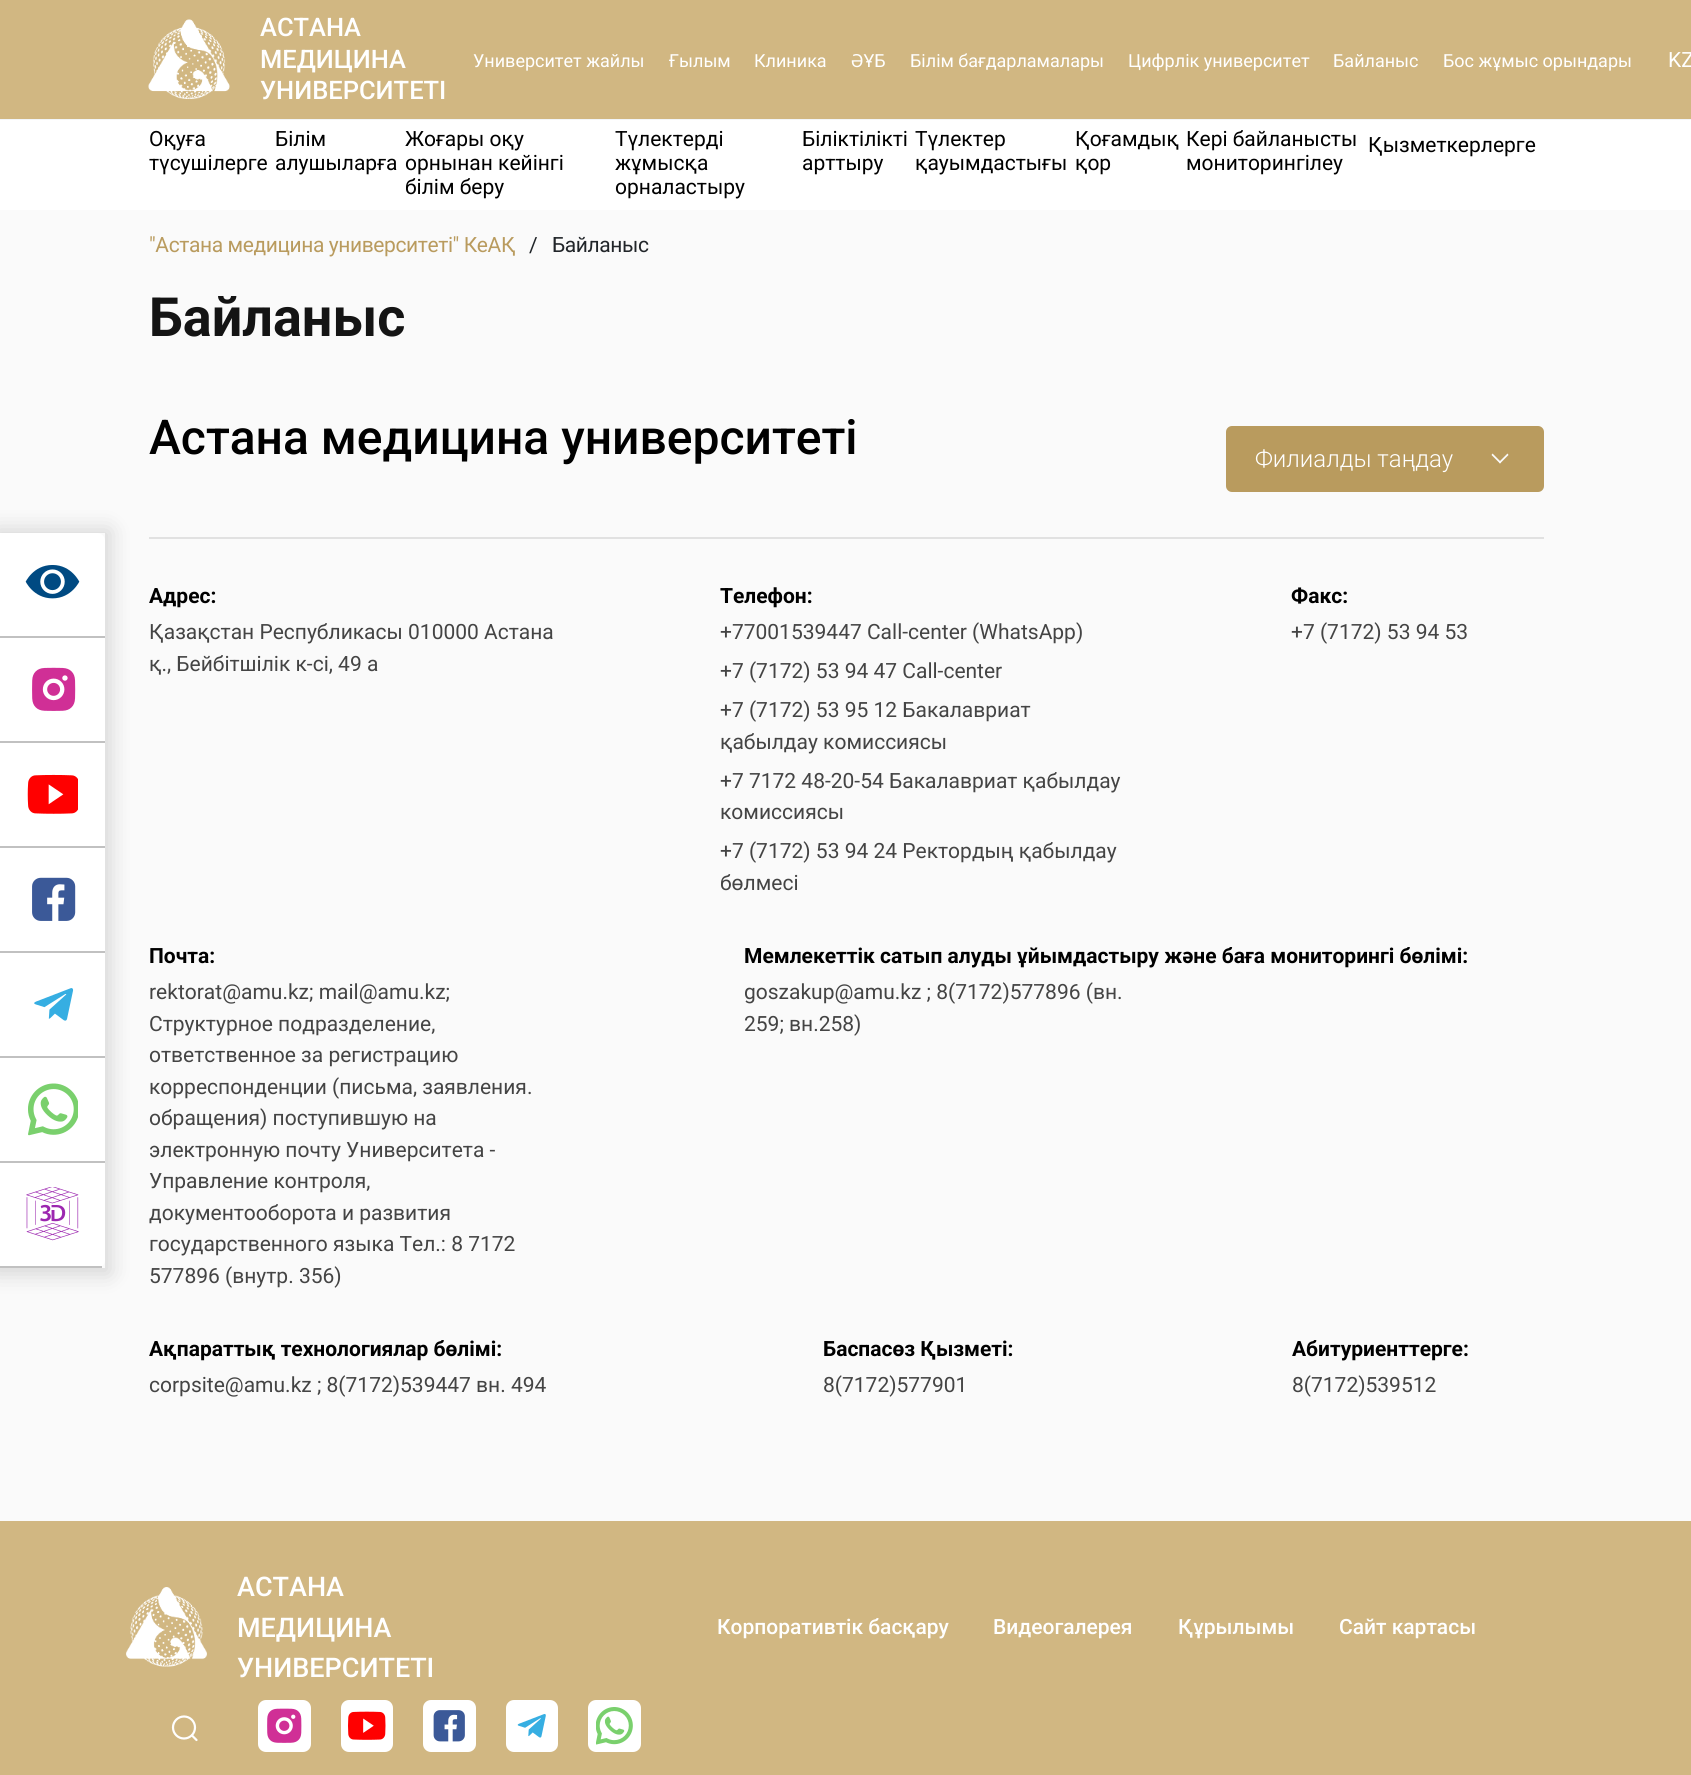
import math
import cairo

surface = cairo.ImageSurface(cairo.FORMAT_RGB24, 1691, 1775)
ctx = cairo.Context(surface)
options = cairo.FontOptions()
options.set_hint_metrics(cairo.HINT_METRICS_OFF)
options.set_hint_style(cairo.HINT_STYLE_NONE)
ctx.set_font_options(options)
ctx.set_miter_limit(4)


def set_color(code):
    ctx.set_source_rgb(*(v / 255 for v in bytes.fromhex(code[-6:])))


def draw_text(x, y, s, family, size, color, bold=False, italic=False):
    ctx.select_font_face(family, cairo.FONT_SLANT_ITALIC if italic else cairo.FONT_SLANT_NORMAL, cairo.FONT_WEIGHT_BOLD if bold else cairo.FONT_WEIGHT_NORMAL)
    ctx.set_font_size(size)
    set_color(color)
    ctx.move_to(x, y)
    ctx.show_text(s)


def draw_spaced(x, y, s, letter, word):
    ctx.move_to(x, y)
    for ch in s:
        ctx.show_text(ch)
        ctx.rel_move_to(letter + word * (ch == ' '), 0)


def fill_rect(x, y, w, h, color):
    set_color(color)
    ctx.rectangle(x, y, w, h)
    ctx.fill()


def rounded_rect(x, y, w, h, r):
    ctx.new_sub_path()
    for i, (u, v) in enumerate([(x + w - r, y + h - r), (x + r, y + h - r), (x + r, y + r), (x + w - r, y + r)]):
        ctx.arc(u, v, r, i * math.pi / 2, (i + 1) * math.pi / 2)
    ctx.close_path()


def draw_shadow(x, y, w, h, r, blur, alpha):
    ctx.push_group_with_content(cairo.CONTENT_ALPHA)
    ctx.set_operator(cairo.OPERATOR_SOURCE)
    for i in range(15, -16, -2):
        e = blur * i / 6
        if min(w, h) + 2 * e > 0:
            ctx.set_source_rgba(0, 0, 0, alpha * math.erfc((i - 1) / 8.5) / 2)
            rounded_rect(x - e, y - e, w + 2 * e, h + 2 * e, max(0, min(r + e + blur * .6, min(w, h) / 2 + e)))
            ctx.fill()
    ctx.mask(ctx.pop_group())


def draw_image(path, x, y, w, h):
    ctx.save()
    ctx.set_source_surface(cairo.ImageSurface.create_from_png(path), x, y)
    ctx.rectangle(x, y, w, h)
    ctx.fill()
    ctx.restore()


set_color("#fafafa")
ctx.paint()
fill_rect(0, 0, 1691, 119, "#d1b782")
fill_rect(0, 119, 1691, 1, "#f2f5f8")
draw_image("assets/img1.png", 148, 19, 82, 80)
draw_text(260, 36, "АСТАНА", "Roboto Medium", 25.5, "#ffffff")
draw_text(260, 68, "МЕДИЦИНА", "Roboto Medium", 25.5, "#ffffff")
draw_text(260, 99, "УНИВЕРСИТЕТІ", "Roboto Medium", 25.5, "#ffffff")
draw_text(473, 67, "Университет жайлы", "Roboto", 18, "#ffffff")
draw_text(669, 67, "Ғылым", "Roboto", 18, "#ffffff")
draw_text(754, 67, "Клиника", "Roboto", 18, "#ffffff")
draw_text(851, 67, "ӘҰБ", "Roboto", 18, "#ffffff")
draw_text(910, 67, "Білім бағдарламалары", "Roboto", 18, "#ffffff")
draw_text(1128, 67, "Цифрлік университет", "Roboto", 18, "#ffffff")
draw_text(1333, 67, "Байланыс", "Roboto", 18, "#ffffff")
draw_text(1443, 67, "Бос жұмыс орындары", "Roboto", 18, "#ffffff")
draw_text(1668, 67, "KZ", "Roboto", 21, "#ffffff")
ctx.save()
ctx.set_fill_rule(cairo.FILL_RULE_EVEN_ODD)
ctx.new_path()
ctx.move_to(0, 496)
ctx.line_to(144, 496)
ctx.line_to(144, 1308)
ctx.line_to(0, 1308)
ctx.close_path()
ctx.move_to(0, 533)
ctx.line_to(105, 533)
ctx.line_to(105, 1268)
ctx.line_to(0, 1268)
ctx.close_path()
ctx.clip()
set_color("#000000")
draw_shadow(-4, 530, 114, 744, 0, 11, 0.15)
ctx.restore()
ctx.new_path()
ctx.move_to(0, 533)
ctx.line_to(97, 533)
ctx.curve_to(101.5, 533, 105, 536.5, 105, 541)
ctx.line_to(105, 638)
ctx.line_to(0, 638)
ctx.close_path()
ctx.fill()
fill_rect(0, 636, 105, 2, "#c1c1c1")
draw_image("assets/img2.png", 25, 565, 55, 34)
fill_rect(0, 638, 105, 103, "#ffffff")
fill_rect(0, 741, 105, 2, "#c1c1c1")
draw_image("assets/img3.png", 32, 667, 44, 44)
fill_rect(0, 743, 105, 103, "#ffffff")
fill_rect(0, 846, 105, 2, "#c1c1c1")
draw_image("assets/img4.png", 27, 774, 51, 40)
fill_rect(0, 848, 105, 103, "#ffffff")
fill_rect(0, 951, 105, 2, "#c1c1c1")
draw_image("assets/img5.png", 32, 877, 44, 44)
fill_rect(0, 953, 105, 103, "#ffffff")
fill_rect(0, 1056, 105, 2, "#c1c1c1")
draw_image("assets/img6.png", 34, 988, 40, 33)
fill_rect(0, 1058, 105, 103, "#ffffff")
fill_rect(0, 1161, 105, 2, "#c1c1c1")
draw_image("assets/img7.png", 28, 1083, 50, 53)
set_color("#ffffff")
ctx.new_path()
ctx.move_to(0, 1163)
ctx.line_to(105, 1163)
ctx.line_to(105, 1260)
ctx.curve_to(105, 1264.5, 101.5, 1268, 97, 1268)
ctx.line_to(0, 1268)
ctx.close_path()
ctx.fill()
fill_rect(0, 1266, 102, 2, "#c1c1c1")
draw_image("assets/img8.png", 26, 1187, 53, 54)
fill_rect(0, 120, 1691, 90, "#ffffff")
draw_text(149, 146, "Оқуға", "Roboto", 21, "#000000")
draw_text(149, 170, "түсушілерге", "Roboto", 21, "#000000")
draw_text(275, 146, "Білім", "Roboto", 21, "#000000")
draw_text(275, 170, "алушыларға", "Roboto", 21, "#000000")
draw_text(405, 146, "Жоғары оқу", "Roboto", 21, "#000000")
draw_text(405, 170, "орнынан кейінгі", "Roboto", 21, "#000000")
draw_text(405, 194, "білім беру", "Roboto", 21, "#000000")
draw_text(615, 146, "Түлектерді", "Roboto", 21, "#000000")
draw_text(615, 170, "жұмысқа", "Roboto", 21, "#000000")
draw_text(615, 194, "орналастыру", "Roboto", 21, "#000000")
draw_text(802, 146, "Біліктілікті", "Roboto", 21, "#000000")
draw_text(802, 170, "арттыру", "Roboto", 21, "#000000")
draw_text(915, 146, "Түлектер", "Roboto", 21, "#000000")
draw_text(915, 170, "қауымдастығы", "Roboto", 21, "#000000")
draw_text(1075, 146, "Қоғамдық", "Roboto", 21, "#000000")
draw_text(1075, 170, "қор", "Roboto", 21, "#000000")
draw_text(1186, 146, "Кері байланысты", "Roboto", 21, "#000000")
draw_text(1186, 170, "мониторингілеу", "Roboto", 21, "#000000")
draw_text(1368, 152, "Қызметкерлерге", "Roboto", 21, "#000000")
set_color("#b99b5e")
draw_spaced(149, 252, "\"Астана медицина университеті\" КеАҚ", -0.4, 0)
set_color("#212529")
draw_spaced(529, 252, "/", -0.4, 0)
draw_spaced(552, 252, "Байланыс", -0.4, 0)
draw_text(149, 336, "Байланыс", "Roboto", 54, "#141414", bold=True)
draw_text(149, 454, "Астана медицина университеті", "Roboto Medium", 48, "#000000")
set_color("#b99b5e")
rounded_rect(1226, 426, 318, 66, 6)
ctx.fill()
draw_text(1255, 467, "Филиалды таңдау", "Roboto Light", 24, "#ffffff")
set_color("#fafafa")
ctx.new_path()
ctx.move_to(1507.5, 453.5)
ctx.line_to(1508.5, 455)
ctx.line_to(1500, 463.5)
ctx.line_to(1499, 462)
ctx.close_path()
ctx.fill()
ctx.new_path()
ctx.move_to(1492.5, 453.5)
ctx.line_to(1501, 462)
ctx.line_to(1500, 463.5)
ctx.line_to(1491.5, 455)
ctx.close_path()
ctx.fill()
fill_rect(149, 537, 1395, 2, "#e1e1e1")
draw_text(149, 603, "Адрес:", "Roboto", 21, "#000000", bold=True)
draw_text(149, 639, "Қазақстан Республикасы 010000 Астана", "Roboto", 21, "#444444")
draw_text(149, 671, "қ., Бейбітшілік к-сі, 49 а", "Roboto", 21, "#444444")
draw_text(720, 603, "Телефон:", "Roboto", 21, "#000000", bold=True)
draw_text(720, 639, "+77001539447 Call-center (WhatsApp)", "Roboto", 21, "#444444")
draw_text(720, 678, "+7 (7172) 53 94 47 Call-center", "Roboto", 21, "#444444")
draw_text(720, 717, "+7 (7172) 53 95 12 Бакалавриат", "Roboto", 21, "#444444")
draw_text(720, 749, "қабылдау комиссиясы", "Roboto", 21, "#444444")
draw_text(720, 788, "+7 7172 48-20-54 Бакалавриат қабылдау", "Roboto", 21, "#444444")
draw_text(720, 819, "комиссиясы", "Roboto", 21, "#444444")
draw_text(720, 858, "+7 (7172) 53 94 24 Ректордың қабылдау", "Roboto", 21, "#444444")
draw_text(720, 890, "бөлмесі", "Roboto", 21, "#444444")
draw_text(1291, 603, "Факс:", "Roboto", 21, "#000000", bold=True)
draw_text(1291, 639, "+7 (7172) 53 94 53", "Roboto", 21, "#444444")
draw_text(149, 963, "Почта:", "Roboto", 21, "#000000", bold=True)
draw_text(149, 999, "rektorat@amu.kz; mail@amu.kz;", "Roboto", 21, "#444444")
draw_text(149, 1031, "Структурное подразделение,", "Roboto", 21, "#444444")
draw_text(149, 1062, "ответственное за регистрацию", "Roboto", 21, "#444444")
draw_text(149, 1094, "корреспонденции (письма, заявления.", "Roboto", 21, "#444444")
draw_text(149, 1125, "обращения) поступившую на", "Roboto", 21, "#444444")
draw_text(149, 1157, "электронную почту Университета -", "Roboto", 21, "#444444")
draw_text(149, 1188, "Управление контроля,", "Roboto", 21, "#444444")
draw_text(149, 1220, "документооборота и развития", "Roboto", 21, "#444444")
draw_text(149, 1251, "государственного языка Тел.: 8 7172", "Roboto", 21, "#444444")
draw_text(149, 1283, "577896 (внутр. 356)", "Roboto", 21, "#444444")
draw_text(744, 963, "Мемлекеттік сатып алуды ұйымдастыру және баға мониторингі бөлімі:", "Roboto", 21, "#000000", bold=True)
draw_text(744, 999, "goszakup@amu.kz ; 8(7172)577896 (вн.", "Roboto", 21, "#444444")
draw_text(744, 1031, "259; вн.258)", "Roboto", 21, "#444444")
draw_text(149, 1356, "Ақпараттық технологиялар бөлімі:", "Roboto", 21, "#000000", bold=True)
draw_text(149, 1392, "corpsite@amu.kz ; 8(7172)539447 вн. 494", "Roboto", 21, "#444444")
draw_text(823, 1356, "Баспасөз Қызметі:", "Roboto", 21, "#000000", bold=True)
draw_text(823, 1392, "8(7172)577901", "Roboto", 21, "#444444")
draw_text(1292, 1356, "Абитуриенттерге:", "Roboto", 21, "#000000", bold=True)
draw_text(1292, 1392, "8(7172)539512", "Roboto", 21, "#444444")
fill_rect(0, 1521, 1691, 254, "#d1b782")
draw_image("assets/img9.png", 126, 1587, 81, 80)
draw_text(237, 1596, "АСТАНА", "Roboto Medium", 27, "#ffffff")
draw_text(237, 1637, "МЕДИЦИНА", "Roboto Medium", 27, "#ffffff")
draw_text(237, 1677, "УНИВЕРСИТЕТІ", "Roboto Medium", 27, "#ffffff")
draw_text(717, 1634, "Корпоративтік басқару", "Roboto Medium", 21, "#ffffff")
draw_text(993, 1634, "Видеогалерея", "Roboto Medium", 21, "#ffffff")
draw_text(1178, 1634, "Құрылымы", "Roboto Medium", 21, "#ffffff")
draw_text(1339, 1634, "Сайт картасы", "Roboto Medium", 21, "#ffffff")
ctx.new_path()
ctx.arc(184, 1727.5, 11, 0, 2 * math.pi)
ctx.set_line_width(2.2)
ctx.stroke()
ctx.new_path()
ctx.move_to(192, 1735.5)
ctx.line_to(196.5, 1740)
ctx.set_line_cap(cairo.LINE_CAP_ROUND)
ctx.set_line_join(cairo.LINE_JOIN_ROUND)
ctx.stroke()
rounded_rect(258, 1700, 53, 52, 8)
ctx.fill()
draw_image("assets/img10.png", 267, 1708, 35, 35)
rounded_rect(341, 1700, 52, 52, 8)
ctx.fill()
draw_image("assets/img11.png", 348, 1711, 38, 29)
rounded_rect(423, 1700, 53, 52, 8)
ctx.fill()
draw_image("assets/img12.png", 433, 1710, 32, 32)
rounded_rect(506, 1700, 52, 52, 8)
ctx.fill()
draw_image("assets/img13.png", 517, 1714, 29, 24)
rounded_rect(588, 1700, 53, 52, 8)
ctx.fill()
draw_image("assets/img14.png", 596, 1707, 37, 38)
surface.write_to_png("output.png")
